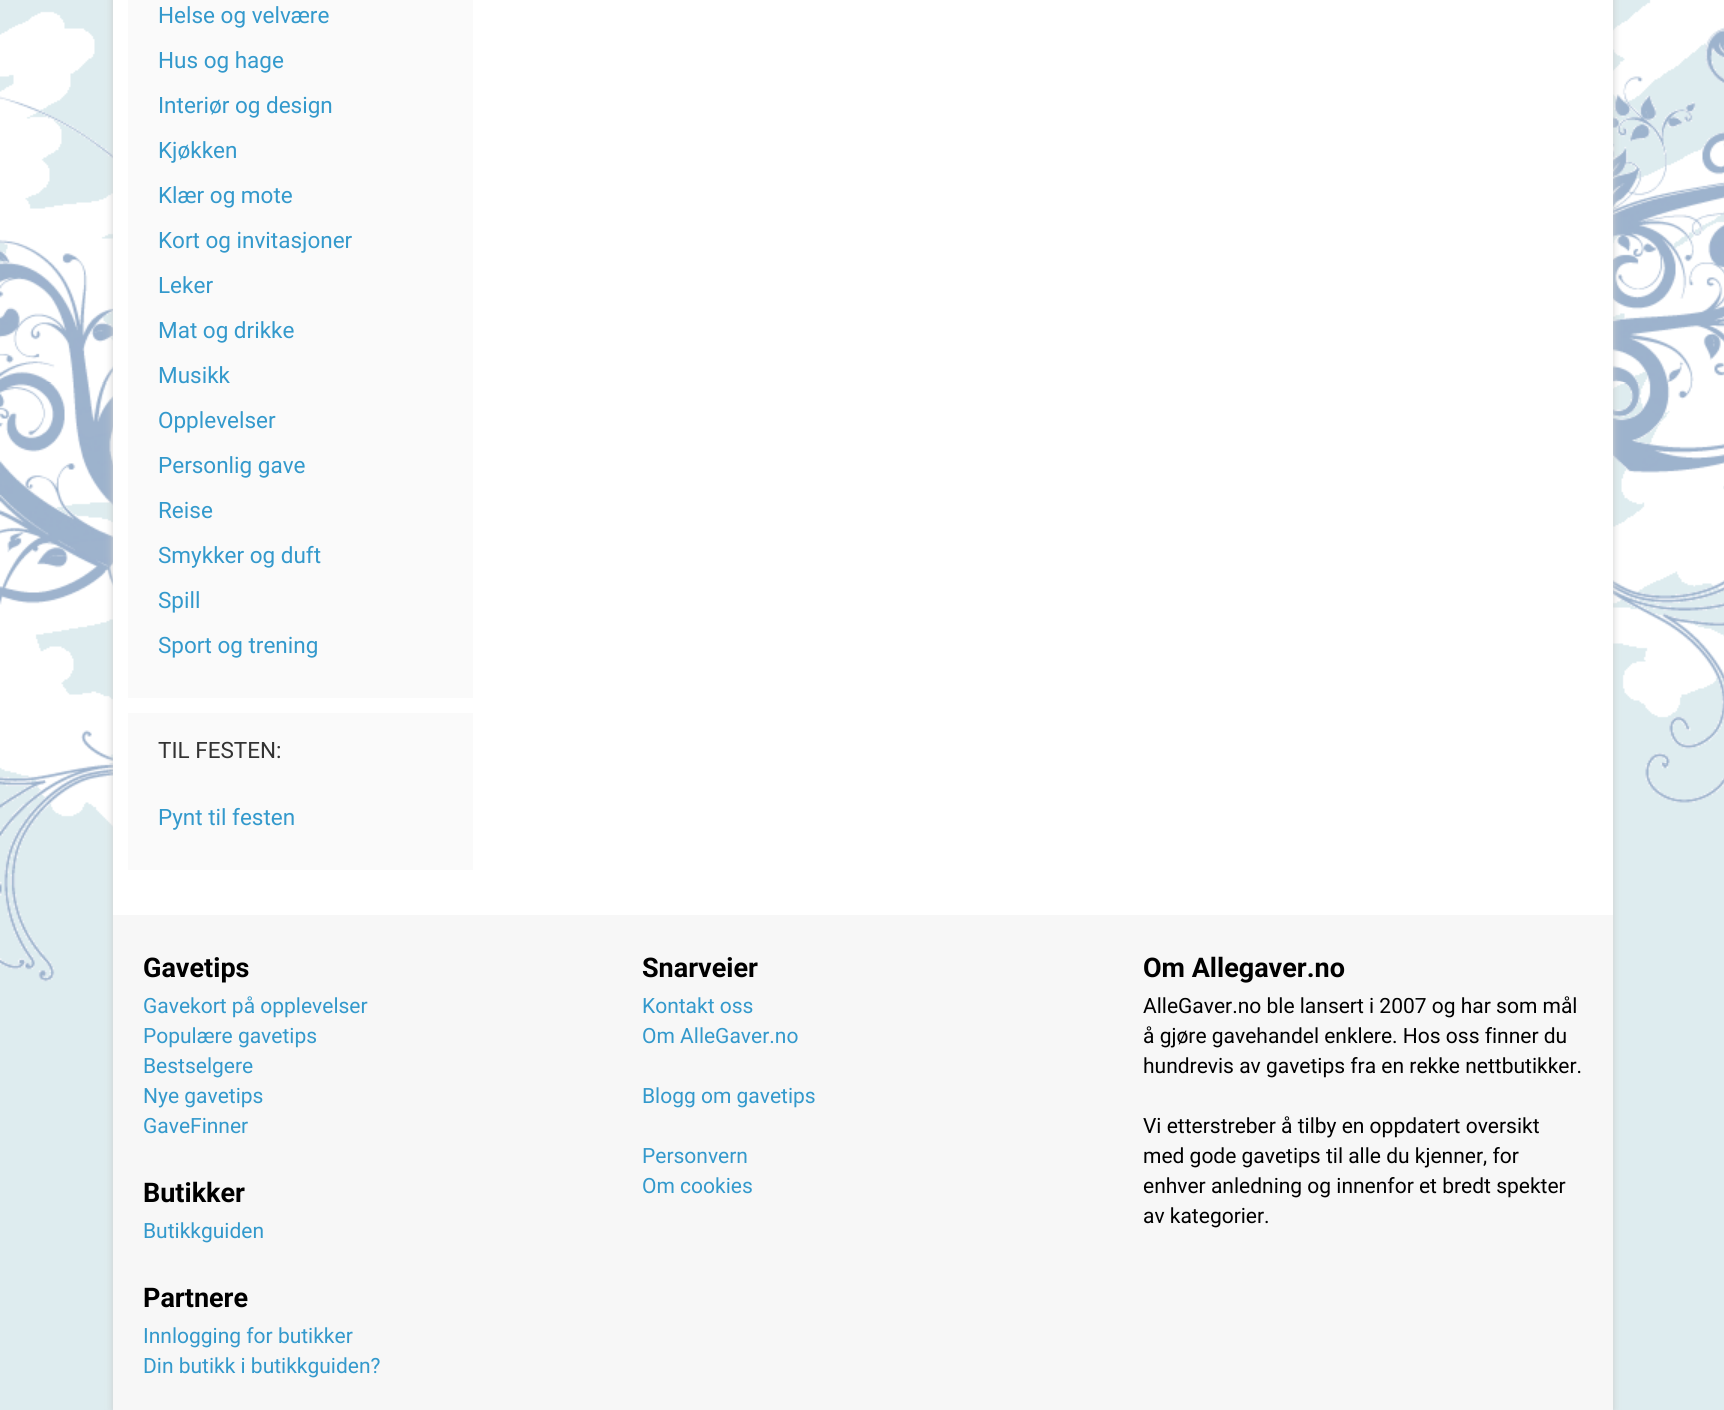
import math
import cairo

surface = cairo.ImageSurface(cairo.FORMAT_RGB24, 1724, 1410)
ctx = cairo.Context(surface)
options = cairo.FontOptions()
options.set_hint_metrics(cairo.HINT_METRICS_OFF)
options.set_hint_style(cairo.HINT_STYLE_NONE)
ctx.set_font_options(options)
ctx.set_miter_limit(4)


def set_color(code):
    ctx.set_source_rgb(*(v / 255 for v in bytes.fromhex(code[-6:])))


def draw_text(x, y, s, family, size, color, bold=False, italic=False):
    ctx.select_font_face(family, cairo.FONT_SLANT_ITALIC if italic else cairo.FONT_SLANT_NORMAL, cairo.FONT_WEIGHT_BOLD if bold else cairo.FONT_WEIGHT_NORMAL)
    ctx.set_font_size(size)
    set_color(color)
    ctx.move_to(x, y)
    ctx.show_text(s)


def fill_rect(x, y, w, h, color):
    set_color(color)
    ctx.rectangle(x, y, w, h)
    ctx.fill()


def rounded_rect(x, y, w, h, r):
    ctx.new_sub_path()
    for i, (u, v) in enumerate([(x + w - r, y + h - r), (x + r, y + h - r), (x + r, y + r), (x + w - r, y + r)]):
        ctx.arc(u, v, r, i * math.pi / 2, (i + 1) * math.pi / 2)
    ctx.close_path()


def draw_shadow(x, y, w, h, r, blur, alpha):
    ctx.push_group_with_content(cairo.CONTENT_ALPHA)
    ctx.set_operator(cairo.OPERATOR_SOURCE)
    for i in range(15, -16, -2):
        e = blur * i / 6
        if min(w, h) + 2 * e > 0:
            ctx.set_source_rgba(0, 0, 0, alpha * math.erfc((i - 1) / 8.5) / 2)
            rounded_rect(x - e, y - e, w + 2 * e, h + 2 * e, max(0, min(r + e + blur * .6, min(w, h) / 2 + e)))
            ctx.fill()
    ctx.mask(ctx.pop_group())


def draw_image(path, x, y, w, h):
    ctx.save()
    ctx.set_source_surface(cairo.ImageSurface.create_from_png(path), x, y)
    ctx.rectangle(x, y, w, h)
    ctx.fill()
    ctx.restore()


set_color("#deecef")
ctx.paint()
draw_image("assets/img1.png", 0, 0, 1724, 982)
set_color("#cccccc")
draw_shadow(113, -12, 1500, 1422, 0, 4, 1)
fill_rect(113, 0, 1500, 915, "#ffffff")
fill_rect(128, 0, 345, 698, "#fafafa")
draw_text(158, 23, "Helse og velvære", "Roboto", 22.5, "#3399cc")
draw_text(158, 68, "Hus og hage", "Roboto", 22.5, "#3399cc")
draw_text(158, 113, "Interiør og design", "Roboto", 22.5, "#3399cc")
draw_text(158, 158, "Kjøkken", "Roboto", 22.5, "#3399cc")
draw_text(158, 203, "Klær og mote", "Roboto", 22.5, "#3399cc")
draw_text(158, 248, "Kort og invitasjoner", "Roboto", 22.5, "#3399cc")
draw_text(158, 293, "Leker", "Roboto", 22.5, "#3399cc")
draw_text(158, 338, "Mat og drikke", "Roboto", 22.5, "#3399cc")
draw_text(158, 383, "Musikk", "Roboto", 22.5, "#3399cc")
draw_text(158, 428, "Opplevelser", "Roboto", 22.5, "#3399cc")
draw_text(158, 473, "Personlig gave", "Roboto", 22.5, "#3399cc")
draw_text(158, 518, "Reise", "Roboto", 22.5, "#3399cc")
draw_text(158, 563, "Smykker og duft", "Roboto", 22.5, "#3399cc")
draw_text(158, 608, "Spill", "Roboto", 22.5, "#3399cc")
draw_text(158, 653, "Sport og trening", "Roboto", 22.5, "#3399cc")
fill_rect(128, 713, 345, 157, "#fafafa")
draw_text(158, 758, "TIL FESTEN:", "Roboto", 22.5, "#333333")
draw_text(158, 825, "Pynt til festen", "Roboto", 22.5, "#3399cc")
fill_rect(113, 915, 1500, 495, "#f7f7f7")
draw_text(143, 977, "Gavetips", "Roboto", 27, "#000000", bold=True)
draw_text(143, 1013, "Gavekort på opplevelser", "Roboto", 21, "#3399cc")
draw_text(143, 1043, "Populære gavetips", "Roboto", 21, "#3399cc")
draw_text(143, 1073, "Bestselgere", "Roboto", 21, "#3399cc")
draw_text(143, 1103, "Nye gavetips", "Roboto", 21, "#3399cc")
draw_text(143, 1133, "GaveFinner", "Roboto", 21, "#3399cc")
draw_text(143, 1202, "Butikker", "Roboto", 27, "#000000", bold=True)
draw_text(143, 1238, "Butikkguiden", "Roboto", 21, "#3399cc")
draw_text(143, 1307, "Partnere", "Roboto", 27, "#000000", bold=True)
draw_text(143, 1343, "Innlogging for butikker", "Roboto", 21, "#3399cc")
draw_text(143, 1373, "Din butikk i butikkguiden?", "Roboto", 21, "#3399cc")
draw_text(642, 977, "Snarveier", "Roboto", 27, "#000000", bold=True)
draw_text(642, 1013, "Kontakt oss", "Roboto", 21, "#3399cc")
draw_text(642, 1043, "Om AlleGaver.no", "Roboto", 21, "#3399cc")
draw_text(642, 1103, "Blogg om gavetips", "Roboto", 21, "#3399cc")
draw_text(642, 1163, "Personvern", "Roboto", 21, "#3399cc")
draw_text(642, 1193, "Om cookies", "Roboto", 21, "#3399cc")
draw_text(1143, 977, "Om Allegaver.no", "Roboto", 27, "#000000", bold=True)
draw_text(1143, 1013, "AlleGaver.no ble lansert i 2007 og har som mål", "Roboto", 21, "#000000")
draw_text(1143, 1043, "å gjøre gavehandel enklere. Hos oss finner du", "Roboto", 21, "#000000")
draw_text(1143, 1073, "hundrevis av gavetips fra en rekke nettbutikker.", "Roboto", 21, "#000000")
draw_text(1143, 1133, "Vi etterstreber å tilby en oppdatert oversikt", "Roboto", 21, "#000000")
draw_text(1143, 1163, "med gode gavetips til alle du kjenner, for", "Roboto", 21, "#000000")
draw_text(1143, 1193, "enhver anledning og innenfor et bredt spekter", "Roboto", 21, "#000000")
draw_text(1143, 1223, "av kategorier.", "Roboto", 21, "#000000")
surface.write_to_png("output.png")
